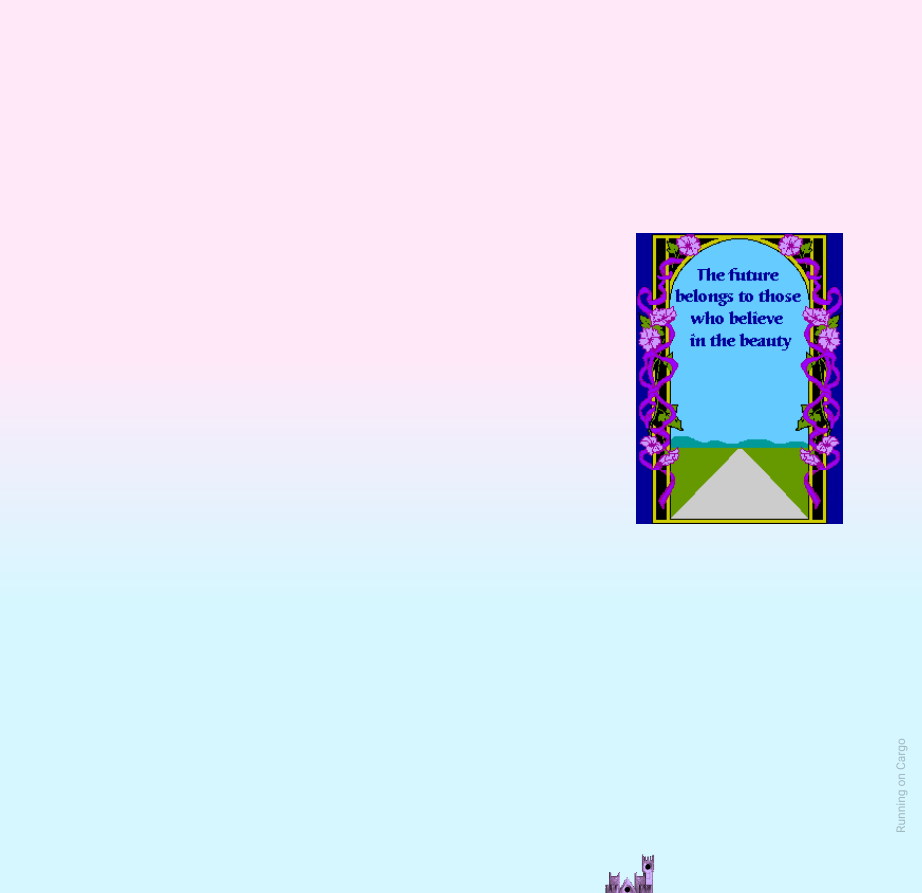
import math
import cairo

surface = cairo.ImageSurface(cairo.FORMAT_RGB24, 922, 893)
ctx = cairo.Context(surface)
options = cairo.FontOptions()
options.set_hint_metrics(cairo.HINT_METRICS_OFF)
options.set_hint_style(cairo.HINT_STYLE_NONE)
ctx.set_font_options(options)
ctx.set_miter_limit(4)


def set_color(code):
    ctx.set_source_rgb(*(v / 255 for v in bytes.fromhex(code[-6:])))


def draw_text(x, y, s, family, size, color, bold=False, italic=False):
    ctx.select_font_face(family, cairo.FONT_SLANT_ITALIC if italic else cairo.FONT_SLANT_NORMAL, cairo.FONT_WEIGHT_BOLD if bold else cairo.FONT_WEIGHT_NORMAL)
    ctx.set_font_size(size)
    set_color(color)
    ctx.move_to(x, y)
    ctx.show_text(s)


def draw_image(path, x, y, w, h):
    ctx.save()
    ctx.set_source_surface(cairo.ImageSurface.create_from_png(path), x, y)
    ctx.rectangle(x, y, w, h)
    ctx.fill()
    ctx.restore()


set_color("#ffffff")
ctx.paint()
gradient = cairo.LinearGradient(461, 0, 461, 893)
gradient.add_color_stop_rgba(0, 1, 0.914, 0.976, 1)
gradient.add_color_stop_rgba(0.4, 1, 0.914, 0.976, 1)
gradient.add_color_stop_rgba(0.68, 0.839, 0.969, 1, 1)
gradient.add_color_stop_rgba(1, 0.839, 0.969, 1, 1)
ctx.set_source(gradient)
ctx.rectangle(0, 0, 922, 893)
ctx.fill()
draw_image("assets/img1.png", 636, 233, 207, 291)
draw_image("assets/img2.png", 605, 854, 50, 39)
ctx.save()
ctx.translate(905, 833)
ctx.rotate(-90 * math.pi / 180)
draw_text(0, 0, "Running on Cargo", "Roboto", 12, "#a1b9bf")
ctx.restore()
surface.write_to_png("output.png")
